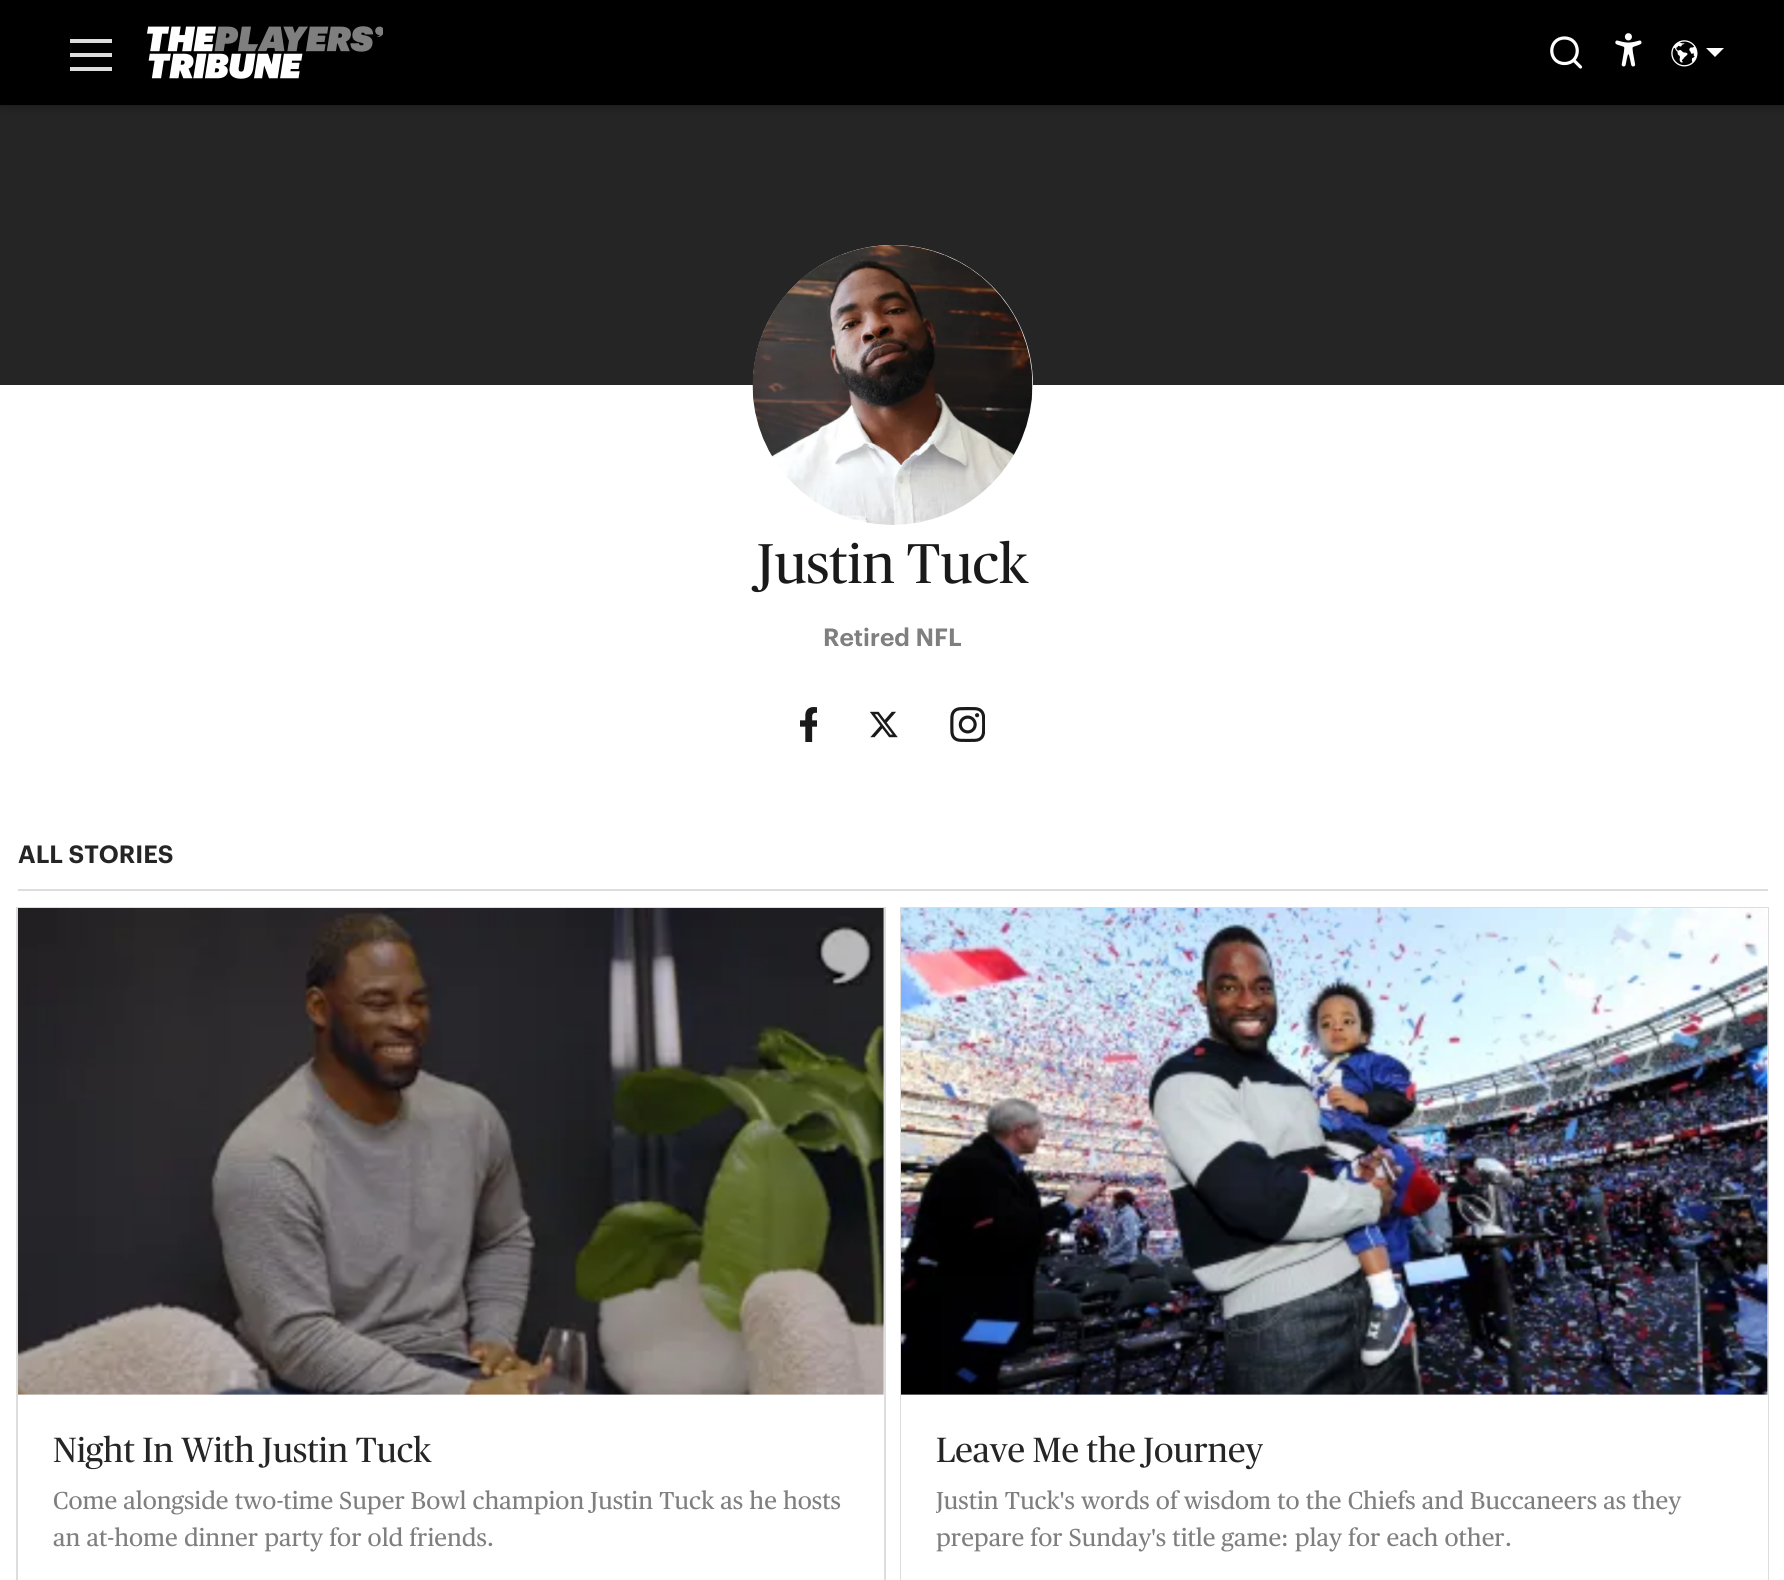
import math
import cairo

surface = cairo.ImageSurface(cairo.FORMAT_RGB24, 1784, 1580)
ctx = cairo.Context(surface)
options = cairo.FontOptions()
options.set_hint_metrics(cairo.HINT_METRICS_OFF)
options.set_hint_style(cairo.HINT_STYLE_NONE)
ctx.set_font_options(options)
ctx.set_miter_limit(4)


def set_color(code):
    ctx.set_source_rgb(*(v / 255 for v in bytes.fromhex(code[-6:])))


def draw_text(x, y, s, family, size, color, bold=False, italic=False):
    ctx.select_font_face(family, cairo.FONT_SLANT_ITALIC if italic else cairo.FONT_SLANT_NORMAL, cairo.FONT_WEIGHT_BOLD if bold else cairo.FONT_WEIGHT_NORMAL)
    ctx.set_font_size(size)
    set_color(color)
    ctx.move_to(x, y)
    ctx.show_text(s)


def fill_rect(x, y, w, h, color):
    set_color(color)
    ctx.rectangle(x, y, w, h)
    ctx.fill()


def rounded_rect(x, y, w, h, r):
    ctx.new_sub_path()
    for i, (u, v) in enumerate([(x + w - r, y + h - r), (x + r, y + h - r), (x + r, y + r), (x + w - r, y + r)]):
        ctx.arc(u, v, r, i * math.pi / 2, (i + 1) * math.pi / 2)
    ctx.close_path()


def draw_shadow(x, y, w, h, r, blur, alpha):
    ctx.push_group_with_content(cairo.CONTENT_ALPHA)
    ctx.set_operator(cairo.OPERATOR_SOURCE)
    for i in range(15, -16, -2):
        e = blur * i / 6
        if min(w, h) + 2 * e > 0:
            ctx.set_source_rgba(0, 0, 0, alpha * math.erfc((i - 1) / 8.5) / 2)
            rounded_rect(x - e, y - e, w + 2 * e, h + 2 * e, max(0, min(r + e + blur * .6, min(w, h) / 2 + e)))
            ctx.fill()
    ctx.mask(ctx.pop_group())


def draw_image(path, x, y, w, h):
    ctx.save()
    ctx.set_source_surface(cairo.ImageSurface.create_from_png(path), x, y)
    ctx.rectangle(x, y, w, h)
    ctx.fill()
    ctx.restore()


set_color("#ffffff")
ctx.paint()
fill_rect(0, 105, 1784, 280, "#252525")
set_color("#000000")
draw_shadow(0, 4, 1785, 105, 0, 3.5, 0.2)
fill_rect(0, 0, 1784, 105, "#000000")
fill_rect(70, 39, 42, 4, "#dddddd")
fill_rect(70, 53, 42, 4, "#dddddd")
fill_rect(70, 67, 42, 4, "#dddddd")
draw_image("assets/img1.png", 147, 26, 236, 53)
ctx.new_path()
ctx.move_to(1564.5, 63.5)
ctx.curve_to(1581.5, 63.5, 1581.5, 38, 1564.5, 38)
ctx.curve_to(1547.5, 38, 1547.5, 63.5, 1564.5, 63.5)
ctx.close_path()
ctx.move_to(1580.5, 67)
ctx.line_to(1573.5, 60)
set_color("#ffffff")
ctx.set_line_width(3.2)
ctx.set_line_cap(cairo.LINE_CAP_ROUND)
ctx.set_line_join(cairo.LINE_JOIN_ROUND)
ctx.stroke()
draw_image("assets/img2.png", 1615, 33, 27, 34)
draw_image("assets/img3.png", 1671, 40, 27, 27)
ctx.set_fill_rule(cairo.FILL_RULE_EVEN_ODD)
ctx.new_path()
ctx.move_to(1706, 48)
ctx.line_to(1715, 57)
ctx.line_to(1724, 48)
ctx.close_path()
ctx.fill()
ctx.arc(893, 385, 140, 0, 2 * math.pi)
ctx.fill()
draw_image("assets/img4.png", 752, 245, 281, 280)
draw_text(757, 583, "Justin Tuck", "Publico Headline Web", 56, "#1a1a1a")
draw_text(823, 646, "Retired NFL", "Graphik SemiBold", 24.5, "#7f7f7f")
draw_image("assets/img5.png", 800, 707, 17, 35)
draw_image("assets/img6.png", 870, 711, 28, 27)
draw_image("assets/img7.png", 950, 707, 35, 35)
fill_rect(18, 889, 1750, 2, "#dddddd")
draw_text(18, 863, "ALL STORIES", "Graphik SemiBold", 24.5, "#252525")
ctx.rectangle(17, 908, 868, 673)
set_color("#dddddd")
ctx.set_line_width(2)
ctx.set_line_cap(cairo.LINE_CAP_BUTT)
ctx.set_line_join(cairo.LINE_JOIN_MITER)
ctx.stroke()
fill_rect(18, 908, 866, 1, "#ffffff")
draw_image("assets/img8.png", 18, 908, 866, 487)
draw_text(53, 1462, "Night In With Justin Tuck", "Publico Headline Web", 35, "#252525")
draw_text(53, 1509, "Come alongside two-time Super Bowl champion Justin Tuck as he hosts", "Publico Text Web", 24.5, "#7f7f7f")
draw_text(53, 1546, "an at-home dinner party for old friends.", "Publico Text Web", 24.5, "#7f7f7f")
ctx.rectangle(901, 908, 867, 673)
set_color("#dddddd")
ctx.stroke()
fill_rect(901, 908, 867, 672, "#ffffff")
draw_image("assets/img9.png", 901, 908, 867, 487)
draw_text(936, 1462, "Leave Me the Journey", "Publico Headline Web", 35, "#252525")
ctx.save()
ctx.set_fill_rule(cairo.FILL_RULE_WINDING)
ctx.rectangle(936, 1482, 797, 74)
ctx.clip()
draw_text(936, 1509, "Justin Tuck's words of wisdom to the Chiefs and Buccaneers as they", "Publico Text Web", 24.5, "#7f7f7f")
ctx.restore()
draw_text(936, 1546, "prepare for Sunday's title game: play for each other.", "Publico Text Web", 24.5, "#7f7f7f")
surface.write_to_png("output.png")
